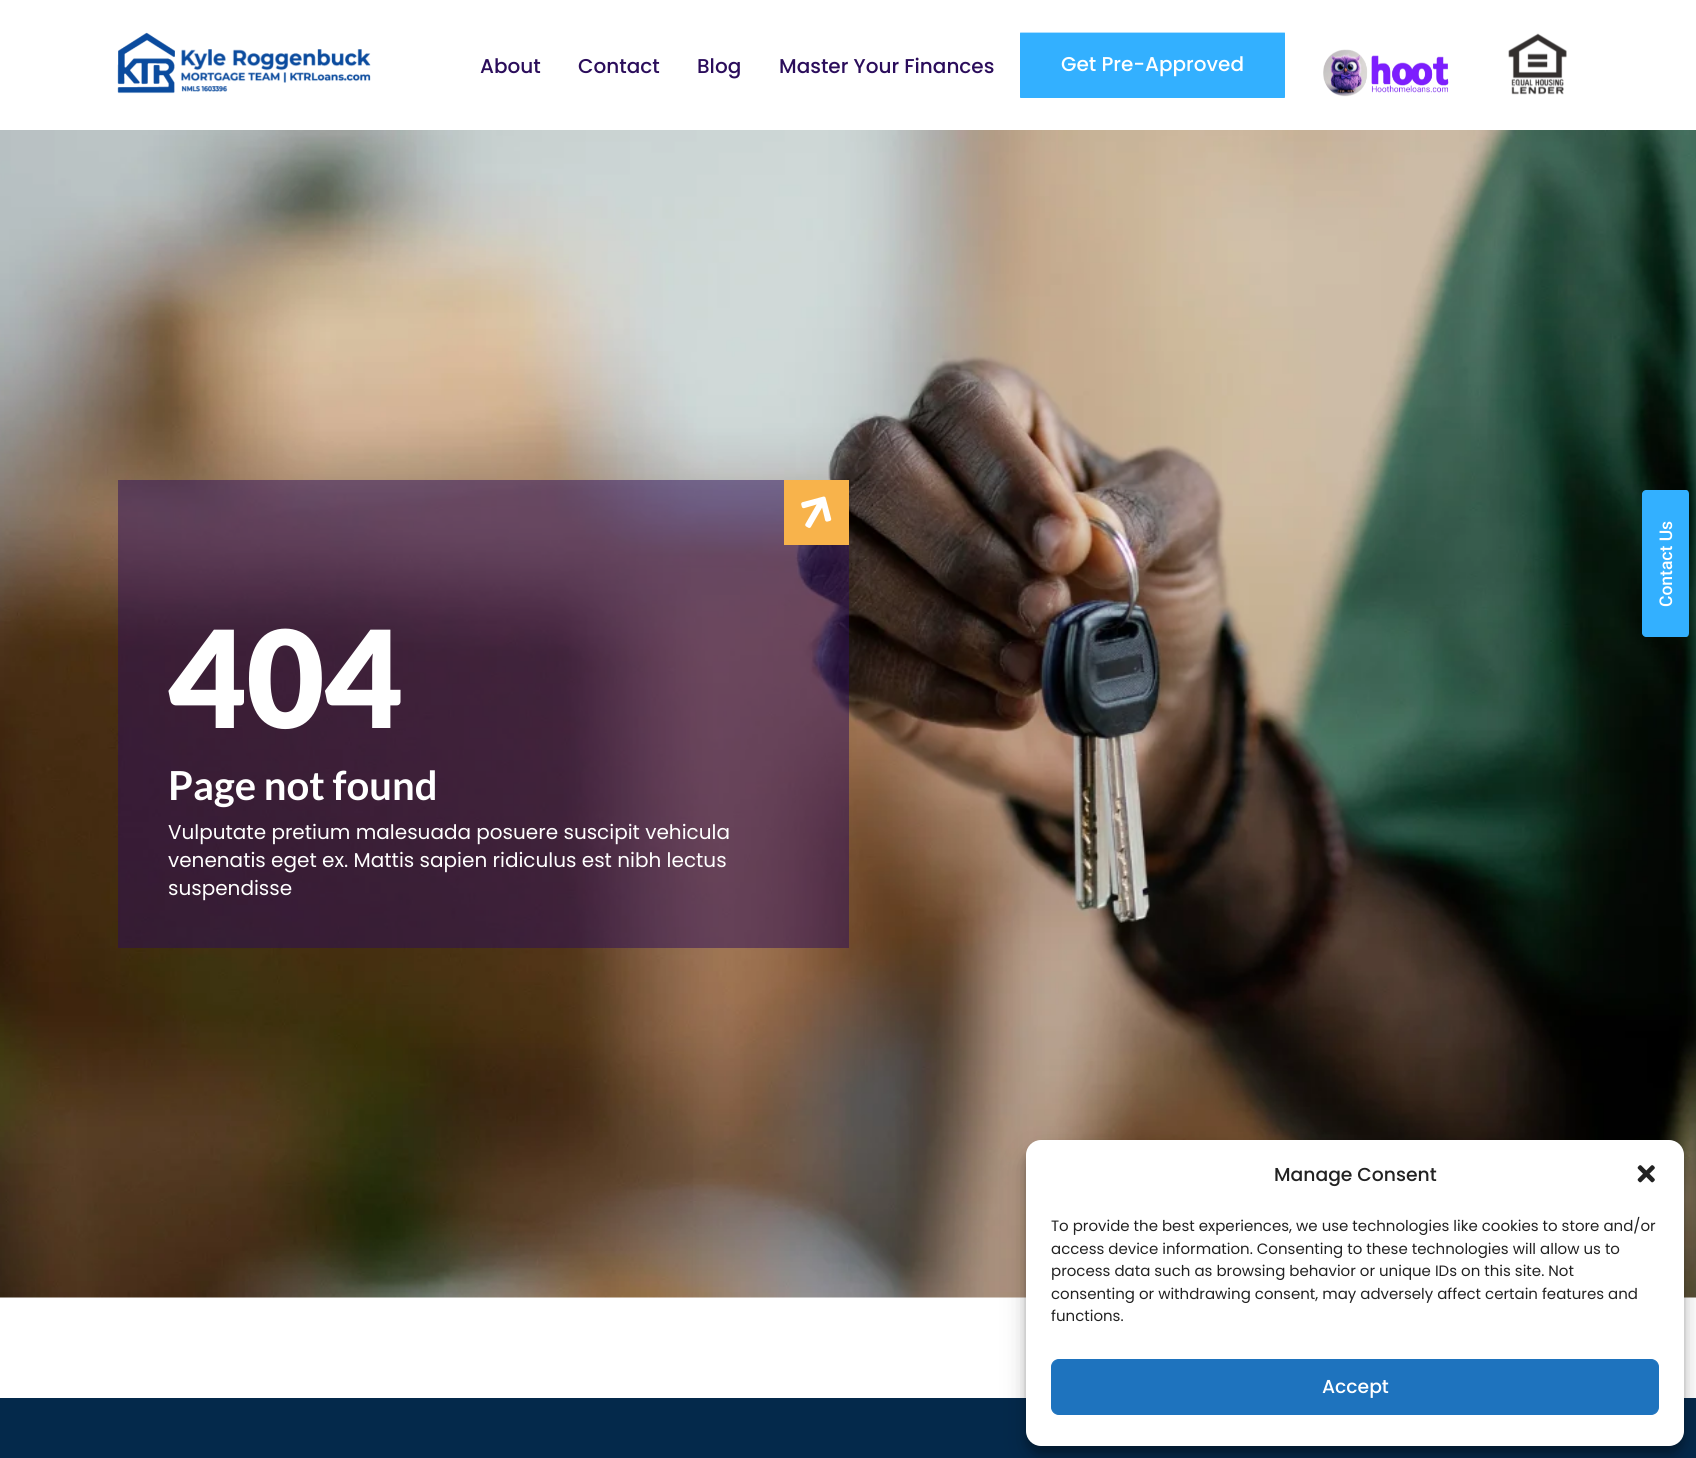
import math
import cairo

surface = cairo.ImageSurface(cairo.FORMAT_RGB24, 1696, 1458)
ctx = cairo.Context(surface)
options = cairo.FontOptions()
options.set_hint_metrics(cairo.HINT_METRICS_OFF)
options.set_hint_style(cairo.HINT_STYLE_NONE)
ctx.set_font_options(options)
ctx.set_miter_limit(4)


def set_color(code):
    ctx.set_source_rgb(*(v / 255 for v in bytes.fromhex(code[-6:])))


def draw_text(x, y, s, family, size, color, bold=False, italic=False):
    ctx.select_font_face(family, cairo.FONT_SLANT_ITALIC if italic else cairo.FONT_SLANT_NORMAL, cairo.FONT_WEIGHT_BOLD if bold else cairo.FONT_WEIGHT_NORMAL)
    ctx.set_font_size(size)
    set_color(color)
    ctx.move_to(x, y)
    ctx.show_text(s)


def fill_rect(x, y, w, h, color):
    set_color(color)
    ctx.rectangle(x, y, w, h)
    ctx.fill()


def rounded_rect(x, y, w, h, r):
    ctx.new_sub_path()
    for i, (u, v) in enumerate([(x + w - r, y + h - r), (x + r, y + h - r), (x + r, y + r), (x + w - r, y + r)]):
        ctx.arc(u, v, r, i * math.pi / 2, (i + 1) * math.pi / 2)
    ctx.close_path()


def draw_shadow(x, y, w, h, r, blur, alpha):
    ctx.push_group_with_content(cairo.CONTENT_ALPHA)
    ctx.set_operator(cairo.OPERATOR_SOURCE)
    for i in range(15, -16, -2):
        e = blur * i / 6
        if min(w, h) + 2 * e > 0:
            ctx.set_source_rgba(0, 0, 0, alpha * math.erfc((i - 1) / 8.5) / 2)
            rounded_rect(x - e, y - e, w + 2 * e, h + 2 * e, max(0, min(r + e + blur * .6, min(w, h) / 2 + e)))
            ctx.fill()
    ctx.mask(ctx.pop_group())


def draw_image(path, x, y, w, h):
    ctx.save()
    ctx.set_source_surface(cairo.ImageSurface.create_from_png(path), x, y)
    ctx.rectangle(x, y, w, h)
    ctx.fill()
    ctx.restore()


set_color("#ffffff")
ctx.paint()
draw_image("assets/img1.png", 117, 32, 254, 62)
draw_text(480, 73, "About", "Poppins Medium", 20, "#2b0d5b")
draw_text(578, 73, "Contact", "Poppins Medium", 20, "#2b0d5b")
draw_text(697, 73, "Blog", "Poppins Medium", 20, "#2b0d5b")
draw_text(779, 73, "Master Your Finances", "Poppins Medium", 20, "#2b0d5b")
set_color("#33b0ff")
rounded_rect(1020, 33, 265, 65, 1)
ctx.fill()
ctx.new_path()
ctx.move_to(1022, 34.5)
ctx.line_to(1283, 34.5)
ctx.line_to(1283, 95.5)
ctx.line_to(1022, 95.5)
ctx.close_path()
ctx.set_line_width(3.8)
ctx.stroke()
draw_text(1061, 71, "Get Pre-Approved", "Poppins Medium", 20, "#ffffff")
draw_image("assets/img2.png", 1323, 33, 244, 64)
draw_image("assets/img3.png", 0, 130, 1696, 1168)
set_color("#33b0ff")
ctx.new_path()
ctx.move_to(1642, 633)
ctx.line_to(1642, 494)
ctx.curve_to(1642, 492, 1644, 490, 1646, 490)
ctx.line_to(1686, 490)
ctx.curve_to(1688, 490, 1689, 492, 1689, 494)
ctx.line_to(1689, 633)
ctx.curve_to(1689, 635, 1688, 637, 1686, 637)
ctx.line_to(1646, 637)
ctx.curve_to(1644, 637, 1642, 635, 1642, 633)
ctx.close_path()
ctx.fill()
ctx.save()
ctx.translate(1672, 607)
ctx.rotate(-90 * math.pi / 180)
draw_text(0, 0, "Contact Us", "Roboto Medium", 17.5, "#ffffff")
ctx.restore()
fill_rect(0, 1398, 1696, 60, "#04294b")
ctx.set_source_rgba(0.169, 0.051, 0.357, 0.5)
ctx.rectangle(118, 480, 731, 468)
ctx.fill()
fill_rect(784, 480, 65, 65, "#f8b34b")
draw_image("assets/img4.png", 801, 496, 31, 32)
draw_text(168, 728, "404", "Lato Black", 135, "#ffffff")
draw_text(168, 800, "Page not found", "Lato", 40, "#ffffff", bold=True)
draw_text(168, 839, "Vulputate pretium malesuada posuere suscipit vehicula", "Poppins", 20, "#ffffff")
draw_text(168, 867, "venenatis eget ex. Mattis sapien ridiculus est nibh lectus", "Poppins", 20, "#ffffff")
draw_text(168, 895, "suspendisse", "Poppins", 20, "#ffffff")
set_color("#000000")
draw_shadow(1026, 1148, 658, 306, 15, 4, 0.23)
draw_shadow(1026, 1153, 658, 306, 15, 12.5, 0.19)
set_color("#ffffff")
rounded_rect(1026, 1140, 658, 306, 15)
ctx.fill()
draw_text(1274, 1181, "Manage Consent", "Poppins Medium", 18.75, "#222222")
draw_image("assets/img5.png", 1637, 1165, 18, 18)
draw_text(1051, 1231, "To provide the best experiences, we use technologies like cookies to store and/or", "Poppins", 15, "#222222")
draw_text(1051, 1254, "access device information. Consenting to these technologies will allow us to", "Poppins", 15, "#222222")
draw_text(1051, 1276, "process data such as browsing behavior or unique IDs on this site. Not", "Poppins", 15, "#222222")
draw_text(1051, 1299, "consenting or withdrawing consent, may adversely affect certain features and", "Poppins", 15, "#222222")
draw_text(1051, 1321, "functions.", "Poppins", 15, "#222222")
set_color("#1e73be")
rounded_rect(1051.5, 1359.5, 607, 55, 7.5)
ctx.fill_preserve()
ctx.set_line_width(1)
ctx.stroke()
draw_text(1322, 1393, "Accept", "Poppins Medium", 18.75, "#ffffff")
surface.write_to_png("output.png")
